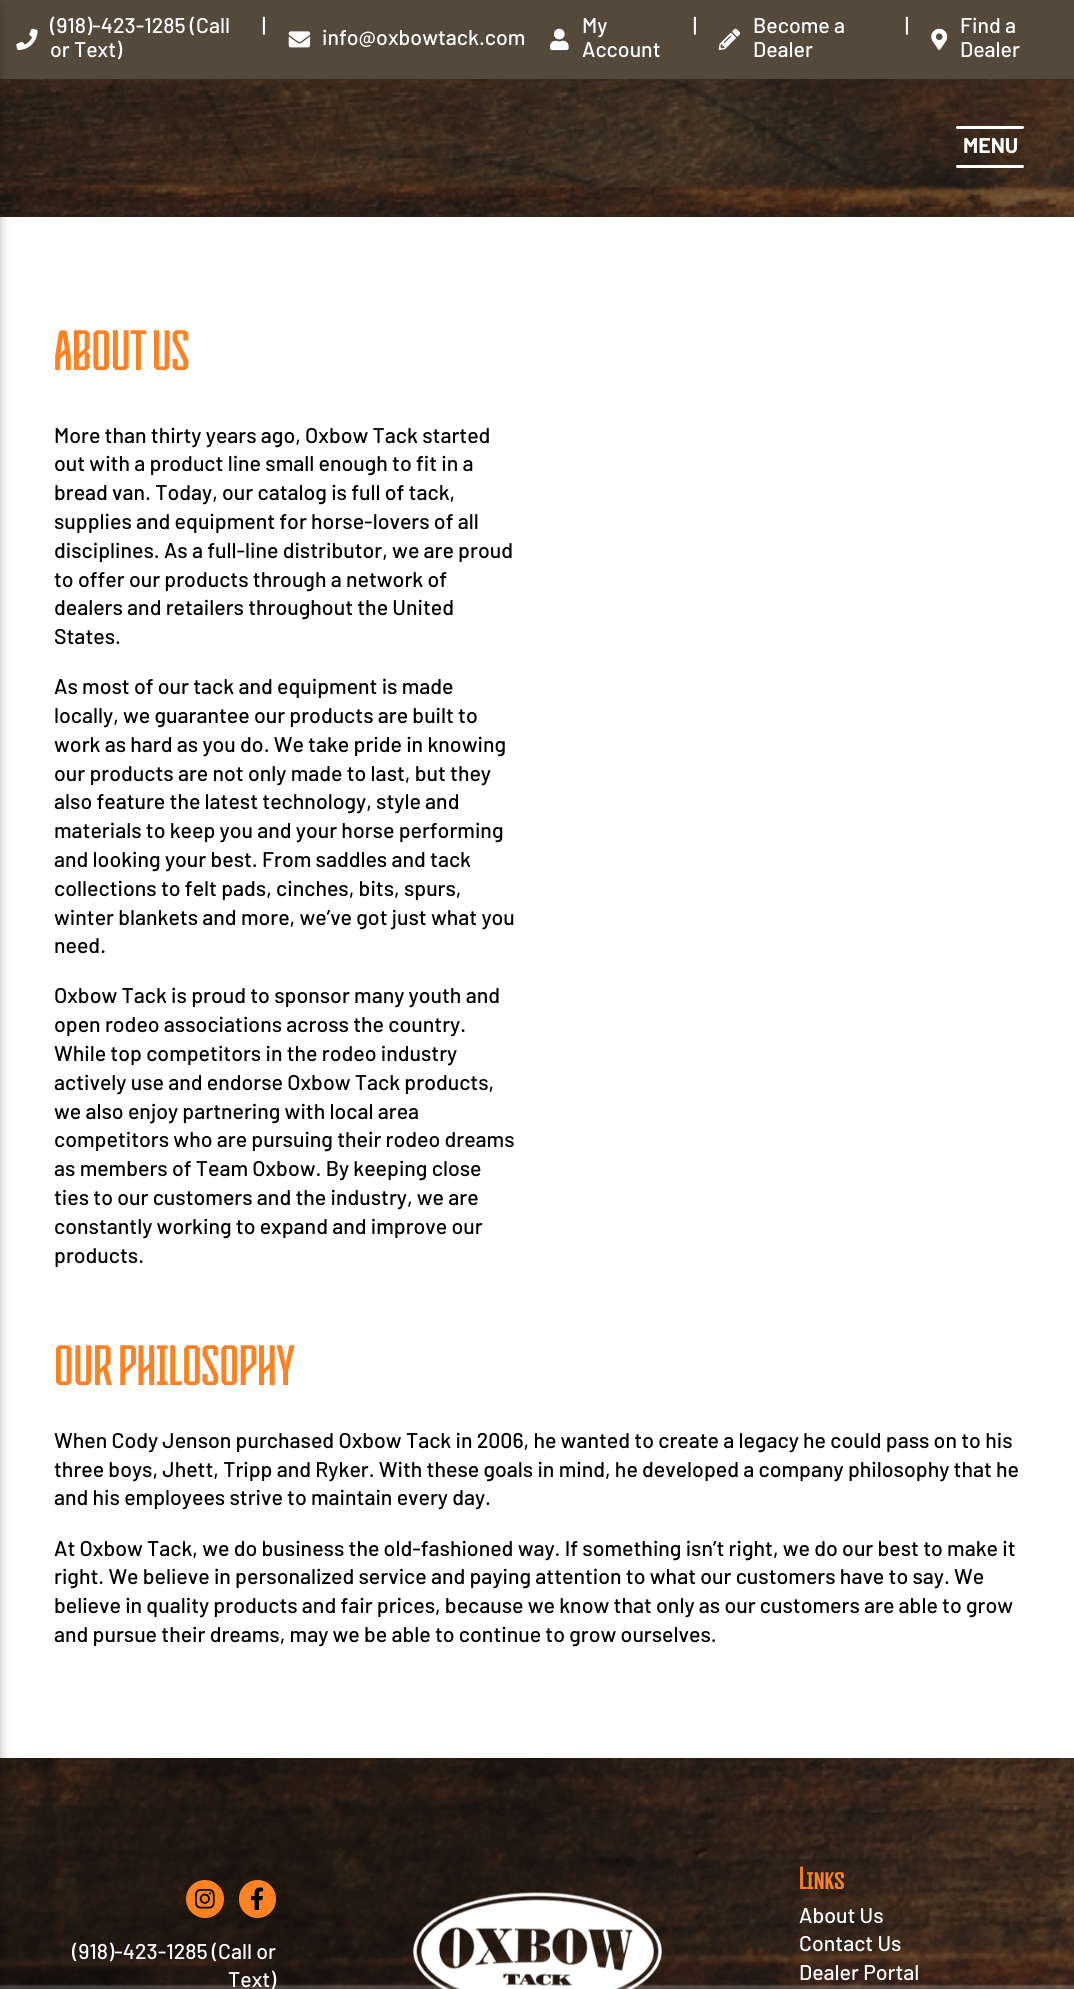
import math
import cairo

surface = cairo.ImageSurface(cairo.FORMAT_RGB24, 1074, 1989)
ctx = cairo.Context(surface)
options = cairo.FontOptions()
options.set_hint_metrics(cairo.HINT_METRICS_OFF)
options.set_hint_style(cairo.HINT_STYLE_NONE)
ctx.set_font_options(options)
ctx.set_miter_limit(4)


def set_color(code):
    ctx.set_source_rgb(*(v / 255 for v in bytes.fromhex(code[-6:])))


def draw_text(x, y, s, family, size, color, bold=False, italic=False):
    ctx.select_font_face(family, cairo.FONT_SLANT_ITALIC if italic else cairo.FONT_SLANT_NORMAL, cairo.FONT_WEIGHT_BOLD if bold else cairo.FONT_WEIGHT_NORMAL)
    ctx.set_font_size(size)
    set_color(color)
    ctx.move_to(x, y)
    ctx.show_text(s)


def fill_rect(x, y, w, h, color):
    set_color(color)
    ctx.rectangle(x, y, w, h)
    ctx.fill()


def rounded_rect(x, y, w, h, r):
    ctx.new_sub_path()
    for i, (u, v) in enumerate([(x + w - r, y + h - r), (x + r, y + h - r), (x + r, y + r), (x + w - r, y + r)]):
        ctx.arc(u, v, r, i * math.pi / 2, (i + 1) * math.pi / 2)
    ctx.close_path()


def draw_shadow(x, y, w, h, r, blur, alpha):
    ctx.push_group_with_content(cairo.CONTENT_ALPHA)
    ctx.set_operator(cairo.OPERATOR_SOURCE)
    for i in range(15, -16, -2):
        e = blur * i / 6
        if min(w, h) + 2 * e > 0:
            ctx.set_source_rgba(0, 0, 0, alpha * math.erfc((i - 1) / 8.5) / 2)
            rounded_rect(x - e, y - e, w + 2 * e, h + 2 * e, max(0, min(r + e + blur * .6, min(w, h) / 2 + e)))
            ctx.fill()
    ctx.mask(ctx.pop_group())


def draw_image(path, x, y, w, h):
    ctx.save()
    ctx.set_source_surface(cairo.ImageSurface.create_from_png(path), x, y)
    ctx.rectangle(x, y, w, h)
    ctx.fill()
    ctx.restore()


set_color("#ffffff")
ctx.paint()
draw_image("assets/img1.png", 0, 79, 1074, 138)
fill_rect(0, 0, 1074, 79, "#55493c")
draw_image("assets/img2.png", 16, 28, 22, 23)
fill_rect(0, 1987, 1074, 2, "#55493c")
draw_image("assets/img7.png", 0, 1758, 1074, 231)
set_color("#000000")
draw_shadow(-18, 10, 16, 1970, 0, 6, 0.4)
draw_text(50, 33, "(918)-423-1285 (Call", "Barlow Medium", 21.3, "#ffffff")
draw_text(50, 57, "or Text)", "Barlow Medium", 21.3, "#ffffff")
draw_text(262, 33, "|", "Barlow Medium", 21.3, "#ffffff")
draw_image("assets/img3.png", 288, 31, 23, 17)
draw_text(322, 45, "info@oxbowtack.com", "Barlow Medium", 21.3, "#ffffff")
draw_image("assets/img4.png", 550, 28, 19, 23)
draw_text(582, 33, "My", "Barlow Medium", 21.3, "#ffffff")
draw_text(582, 57, "Account", "Barlow Medium", 21.3, "#ffffff")
draw_text(693, 33, "|", "Barlow Medium", 21.3, "#ffffff")
draw_image("assets/img5.png", 718, 28, 22, 22)
draw_text(753, 33, "Become a", "Barlow Medium", 21.3, "#ffffff")
draw_text(753, 57, "Dealer", "Barlow Medium", 21.3, "#ffffff")
draw_text(905, 33, "|", "Barlow Medium", 21.3, "#ffffff")
draw_image("assets/img6.png", 931, 28, 17, 22)
draw_text(960, 33, "Find a", "Barlow Medium", 21.3, "#ffffff")
draw_text(960, 57, "Dealer", "Barlow Medium", 21.3, "#ffffff")
rounded_rect(956, 126, 68, 3, 1.5)
ctx.fill()
draw_text(963, 153, "MENU", "Barlow", 21.3, "#ffffff", bold=True)
rounded_rect(956, 165, 68, 3, 1.5)
ctx.fill()
draw_text(54, 370, "ABOUT US", "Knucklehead", 56.75, "#fd8224")
draw_text(54, 443, "More than thirty years ago, Oxbow Tack started", "Barlow Medium", 21.3, "#000000")
draw_text(54, 471, "out with a product line small enough to fit in a", "Barlow Medium", 21.3, "#000000")
draw_text(54, 500, "bread van. Today, our catalog is full of tack,", "Barlow Medium", 21.3, "#000000")
draw_text(54, 529, "supplies and equipment for horse-lovers of all", "Barlow Medium", 21.3, "#000000")
draw_text(54, 558, "disciplines. As a full-line distributor, we are proud", "Barlow Medium", 21.3, "#000000")
draw_text(54, 587, "to offer our products through a network of", "Barlow Medium", 21.3, "#000000")
draw_text(54, 615, "dealers and retailers throughout the United", "Barlow Medium", 21.3, "#000000")
draw_text(54, 644, "States.", "Barlow Medium", 21.3, "#000000")
draw_text(54, 694, "As most of our tack and equipment is made", "Barlow Medium", 21.3, "#000000")
draw_text(54, 723, "locally, we guarantee our products are built to", "Barlow Medium", 21.3, "#000000")
draw_text(54, 752, "work as hard as you do. We take pride in knowing", "Barlow Medium", 21.3, "#000000")
draw_text(54, 781, "our products are not only made to last, but they", "Barlow Medium", 21.3, "#000000")
draw_text(54, 809, "also feature the latest technology, style and", "Barlow Medium", 21.3, "#000000")
draw_text(54, 838, "materials to keep you and your horse performing", "Barlow Medium", 21.3, "#000000")
draw_text(54, 867, "and looking your best. From saddles and tack", "Barlow Medium", 21.3, "#000000")
draw_text(54, 896, "collections to felt pads, cinches, bits, spurs,", "Barlow Medium", 21.3, "#000000")
draw_text(54, 925, "winter blankets and more, we’ve got just what you", "Barlow Medium", 21.3, "#000000")
draw_text(54, 953, "need.", "Barlow Medium", 21.3, "#000000")
draw_text(54, 1003, "Oxbow Tack is proud to sponsor many youth and", "Barlow Medium", 21.3, "#000000")
draw_text(54, 1032, "open rodeo associations across the country.", "Barlow Medium", 21.3, "#000000")
draw_text(54, 1061, "While top competitors in the rodeo industry", "Barlow Medium", 21.3, "#000000")
draw_text(54, 1090, "actively use and endorse Oxbow Tack products,", "Barlow Medium", 21.3, "#000000")
draw_text(54, 1119, "we also enjoy partnering with local area", "Barlow Medium", 21.3, "#000000")
draw_text(54, 1147, "competitors who are pursuing their rodeo dreams", "Barlow Medium", 21.3, "#000000")
draw_text(54, 1176, "as members of Team Oxbow. By keeping close", "Barlow Medium", 21.3, "#000000")
draw_text(54, 1205, "ties to our customers and the industry, we are", "Barlow Medium", 21.3, "#000000")
draw_text(54, 1234, "constantly working to expand and improve our", "Barlow Medium", 21.3, "#000000")
draw_text(54, 1263, "products.", "Barlow Medium", 21.3, "#000000")
draw_text(54, 1385, "OUR PHILOSOPHY", "Knucklehead", 56.75, "#fd8224")
draw_text(54, 1448, "When Cody Jenson purchased Oxbow Tack in 2006, he wanted to create a legacy he could pass on to his", "Barlow Medium", 21.3, "#000000")
draw_text(54, 1477, "three boys, Jhett, Tripp and Ryker. With these goals in mind, he developed a company philosophy that he", "Barlow Medium", 21.3, "#000000")
draw_text(54, 1505, "and his employees strive to maintain every day.", "Barlow Medium", 21.3, "#000000")
draw_text(54, 1556, "At Oxbow Tack, we do business the old-fashioned way. If something isn’t right, we do our best to make it", "Barlow Medium", 21.3, "#000000")
draw_text(54, 1584, "right. We believe in personalized service and paying attention to what our customers have to say. We", "Barlow Medium", 21.3, "#000000")
draw_text(54, 1613, "believe in quality products and fair prices, because we know that only as our customers are able to grow", "Barlow Medium", 21.3, "#000000")
draw_text(54, 1642, "and pursue their dreams, may we be able to continue to grow ourselves.", "Barlow Medium", 21.3, "#000000")
set_color("#fd8224")
ctx.new_path()
ctx.arc(205, 1899, 19, 0, 2 * math.pi)
ctx.fill()
draw_image("assets/img8.png", 195, 1889, 20, 20)
rounded_rect(239, 1880, 37, 38, 18.5)
ctx.fill()
draw_image("assets/img9.png", 251, 1887, 13, 23)
draw_text(72, 1959, "(918)-423-1285 (Call or", "Barlow Medium", 21.3, "#ffffff")
draw_text(228, 1987, "Text)", "Barlow Medium", 21.3, "#ffffff")
draw_image("assets/img10.png", 413, 1892, 249, 97)
draw_text(799, 1889, "Links", "Knucklehead", 32, "#fd8224")
draw_text(799, 1923, "About Us", "Barlow Medium", 21.3, "#ffffff")
draw_text(799, 1951, "Contact Us", "Barlow Medium", 21.3, "#ffffff")
draw_text(799, 1980, "Dealer Portal", "Barlow Medium", 21.3, "#ffffff")
surface.write_to_png("output.png")
